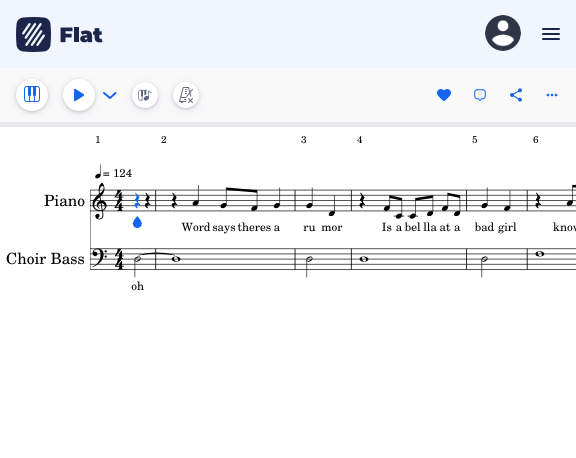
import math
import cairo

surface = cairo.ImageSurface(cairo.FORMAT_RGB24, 576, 458)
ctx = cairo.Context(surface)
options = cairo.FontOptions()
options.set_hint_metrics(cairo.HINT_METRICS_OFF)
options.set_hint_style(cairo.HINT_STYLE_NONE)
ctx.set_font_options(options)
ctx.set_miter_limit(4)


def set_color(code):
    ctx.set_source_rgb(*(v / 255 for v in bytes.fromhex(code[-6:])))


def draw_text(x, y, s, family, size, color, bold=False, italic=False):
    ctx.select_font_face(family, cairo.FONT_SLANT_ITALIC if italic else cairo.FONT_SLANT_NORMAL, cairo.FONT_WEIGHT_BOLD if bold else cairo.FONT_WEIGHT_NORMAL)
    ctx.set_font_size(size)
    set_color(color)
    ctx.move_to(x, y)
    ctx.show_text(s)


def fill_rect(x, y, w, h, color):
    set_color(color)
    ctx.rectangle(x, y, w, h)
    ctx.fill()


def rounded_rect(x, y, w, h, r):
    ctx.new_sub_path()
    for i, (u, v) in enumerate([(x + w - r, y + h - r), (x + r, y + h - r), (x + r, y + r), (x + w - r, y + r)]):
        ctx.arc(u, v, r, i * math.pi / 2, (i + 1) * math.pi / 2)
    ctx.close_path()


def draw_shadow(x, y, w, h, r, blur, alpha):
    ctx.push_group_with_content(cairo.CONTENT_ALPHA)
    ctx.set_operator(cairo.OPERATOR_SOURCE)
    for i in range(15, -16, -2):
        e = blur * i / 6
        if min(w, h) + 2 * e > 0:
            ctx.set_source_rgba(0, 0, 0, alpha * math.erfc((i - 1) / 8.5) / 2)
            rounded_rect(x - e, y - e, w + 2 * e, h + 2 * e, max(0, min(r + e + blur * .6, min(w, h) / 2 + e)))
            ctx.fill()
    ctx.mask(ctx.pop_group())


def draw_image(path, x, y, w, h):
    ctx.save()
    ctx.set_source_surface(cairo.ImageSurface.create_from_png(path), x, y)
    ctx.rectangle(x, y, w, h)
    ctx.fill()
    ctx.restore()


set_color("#ffffff")
ctx.paint()
fill_rect(0, 0, 576, 68, "#f1f6fe")
draw_image("assets/img1.png", 16, 17, 87, 35)
set_color("#ffffff")
ctx.arc(503, 33, 18, 0, 2 * math.pi)
ctx.fill()
draw_image("assets/img2.png", 485, 15, 36, 36)
set_color("#1c264a")
rounded_rect(542, 28, 18, 2, 1)
ctx.fill()
rounded_rect(542, 33, 18, 2, 1)
ctx.fill()
rounded_rect(542, 38, 18, 2, 1)
ctx.fill()
fill_rect(0, 68, 576, 54, "#f9f9fa")
set_color("#28304f")
draw_shadow(63, 81, 32, 32, 16, 4, 0.1)
draw_shadow(132, 84, 26, 26, 13, 4, 0.1)
draw_shadow(173, 84, 26, 26, 13, 4, 0.1)
fill_rect(0, 122, 576, 5, "#e7e8ec")
set_color("#28304f")
draw_shadow(16, 80, 32, 32, 16, 4, 0.1)
draw_shadow(16, 80, 32, 32, 16, 1.5, 0.2)
set_color("#ffffff")
ctx.arc(32, 95, 16, 0, 2 * math.pi)
ctx.fill()
draw_image("assets/img3.png", 24, 86, 16, 16)
set_color("#28304f")
draw_shadow(63, 80, 32, 32, 16, 1.5, 0.2)
set_color("#ffffff")
ctx.arc(79, 95, 16, 0, 2 * math.pi)
ctx.fill()
draw_image("assets/img4.png", 74, 88, 11, 14)
ctx.new_path()
ctx.move_to(104, 93)
ctx.line_to(110, 98)
ctx.line_to(115.5, 93)
set_color("#1565ef")
ctx.set_line_cap(cairo.LINE_CAP_ROUND)
ctx.set_line_join(cairo.LINE_JOIN_ROUND)
ctx.stroke()
set_color("#28304f")
draw_shadow(132, 83, 26, 26, 13, 1.5, 0.2)
set_color("#ffffff")
ctx.arc(145, 95, 13, 0, 2 * math.pi)
ctx.fill()
draw_image("assets/img5.png", 138, 89, 14, 12)
set_color("#28304f")
draw_shadow(173, 83, 26, 26, 13, 1.5, 0.2)
set_color("#ffffff")
ctx.arc(186, 95, 13, 0, 2 * math.pi)
ctx.fill()
draw_image("assets/img6.png", 179, 87, 14, 16)
draw_image("assets/img7.png", 437, 89, 14, 12)
draw_image("assets/img8.png", 474, 89, 12, 12)
draw_image("assets/img9.png", 510, 88, 12, 14)
draw_image("assets/img10.png", 546, 93, 12, 4)
draw_text(95, 143, "1", "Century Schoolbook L", 10, "#000000")
draw_text(161, 143, "2", "Century Schoolbook L", 10, "#000000")
draw_text(301, 143, "3", "Century Schoolbook L", 10, "#000000")
draw_text(357, 143, "4", "Century Schoolbook L", 10, "#000000")
draw_text(472, 143, "5", "Century Schoolbook L", 10, "#000000")
draw_text(533, 143, "6", "Century Schoolbook L", 10, "#000000")
gradient = cairo.RadialGradient(0, 0, 0, 0, 0, 1)
gradient.set_matrix(cairo.Matrix(1 / 11, 0, 0, 1 / 157, -1 * 90 / 11, -1 * 306 / 157))
gradient.add_color_stop_rgba(0, 0.569, 0.569, 0.569, 1)
gradient.add_color_stop_rgba(1, 1, 1, 1, 1)
ctx.set_source(gradient)
ctx.rectangle(100, 273, 1, 66)
ctx.fill()
gradient = cairo.LinearGradient(90, 306, 576, 306)
gradient.add_color_stop_rgba(0, 1, 1, 1, 1)
gradient.add_color_stop_rgba(0.02, 1, 1, 1, 1)
gradient.add_color_stop_rgba(0.04, 1, 1, 1, 0.5)
ctx.set_source(gradient)
ctx.rectangle(100, 273, 1, 66)
ctx.fill()
draw_image("assets/img11.png", 90, 164, 486, 127)
draw_text(44, 206, "Piano", "Century Schoolbook L", 15.5, "#000000")
draw_text(6, 264, "Choir Bass", "Century Schoolbook L", 15.5, "#000000")
surface.write_to_png("output.png")
